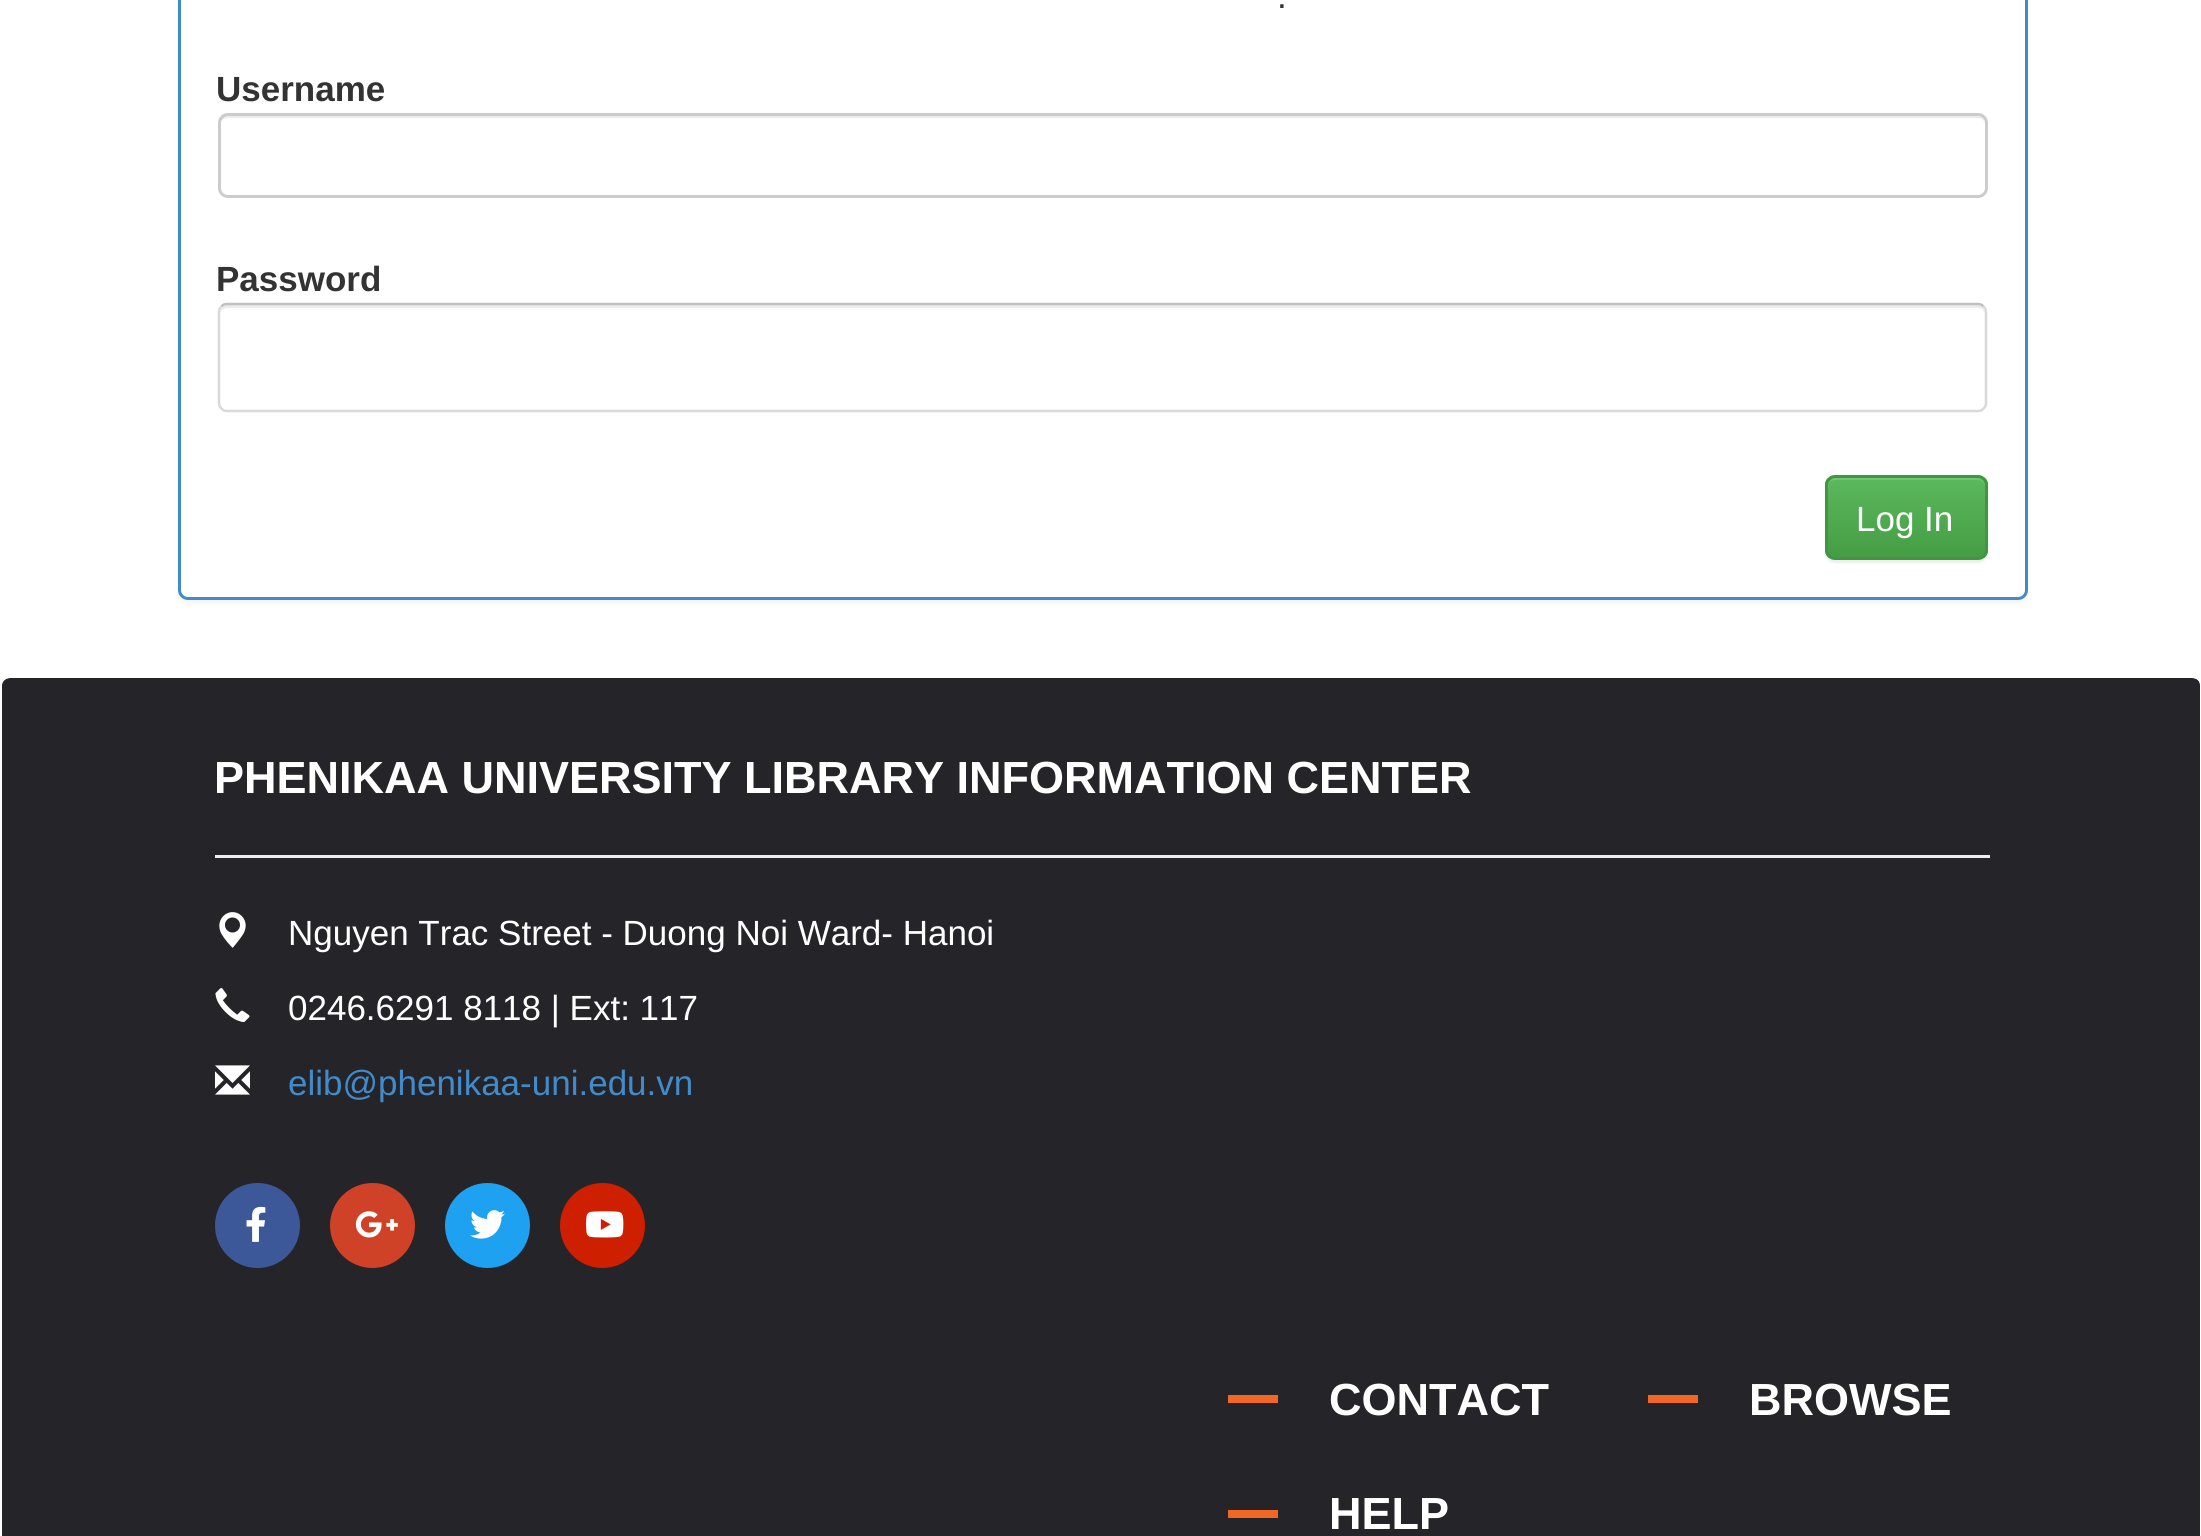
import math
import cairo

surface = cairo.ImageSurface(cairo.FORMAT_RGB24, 2201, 1536)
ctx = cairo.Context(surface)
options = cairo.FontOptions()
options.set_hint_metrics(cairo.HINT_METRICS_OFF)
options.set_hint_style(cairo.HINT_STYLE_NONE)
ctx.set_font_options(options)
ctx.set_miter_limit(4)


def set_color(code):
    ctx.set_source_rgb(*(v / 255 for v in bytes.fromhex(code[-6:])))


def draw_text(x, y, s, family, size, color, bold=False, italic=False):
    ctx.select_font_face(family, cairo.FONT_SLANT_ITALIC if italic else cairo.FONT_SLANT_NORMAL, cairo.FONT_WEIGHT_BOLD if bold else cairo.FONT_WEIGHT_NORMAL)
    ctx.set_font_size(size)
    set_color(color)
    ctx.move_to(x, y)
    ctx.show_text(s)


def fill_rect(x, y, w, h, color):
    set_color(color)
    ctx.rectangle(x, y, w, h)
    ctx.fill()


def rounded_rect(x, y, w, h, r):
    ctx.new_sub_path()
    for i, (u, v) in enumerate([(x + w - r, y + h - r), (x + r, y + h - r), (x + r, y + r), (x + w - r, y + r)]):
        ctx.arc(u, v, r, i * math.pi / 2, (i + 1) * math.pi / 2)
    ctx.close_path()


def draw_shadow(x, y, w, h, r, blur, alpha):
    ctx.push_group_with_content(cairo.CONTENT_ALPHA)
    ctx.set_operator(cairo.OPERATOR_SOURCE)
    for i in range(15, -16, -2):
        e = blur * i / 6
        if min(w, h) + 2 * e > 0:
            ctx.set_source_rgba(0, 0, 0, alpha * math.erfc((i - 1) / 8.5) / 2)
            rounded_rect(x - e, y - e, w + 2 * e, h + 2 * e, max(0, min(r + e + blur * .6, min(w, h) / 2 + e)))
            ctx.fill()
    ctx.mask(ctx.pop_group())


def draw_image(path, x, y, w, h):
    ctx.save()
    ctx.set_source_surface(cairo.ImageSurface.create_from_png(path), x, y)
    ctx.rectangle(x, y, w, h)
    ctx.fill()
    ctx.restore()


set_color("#ffffff")
ctx.paint()
set_color("#000000")
draw_shadow(178, -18, 1850, 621, 10, 2.5, 0.05)
set_color("#ffffff")
rounded_rect(179.5, -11.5, 1847, 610, 8.5)
ctx.fill_preserve()
set_color("#428bca")
ctx.set_line_width(3)
ctx.stroke()
draw_text(1277, 8, ".", "Liberation Sans", 35, "#333333")
draw_text(216, 101, "Username", "Liberation Sans", 35, "#333333", bold=True)
set_color("#ececec")
ctx.new_path()
ctx.move_to(228, 118)
ctx.line_to(1978, 118)
ctx.curve_to(1982, 118, 1985, 121, 1985, 125)
ctx.curve_to(1985, 120, 1983, 115, 1977, 115)
ctx.line_to(228, 115)
ctx.curve_to(222, 115, 220, 120, 220, 125)
ctx.curve_to(220, 121, 223, 118, 228, 118)
ctx.close_path()
ctx.fill()
rounded_rect(219.5, 114.5, 1767, 82, 8.5)
set_color("#cccccc")
ctx.stroke()
draw_text(216, 291, "Password", "Liberation Sans", 35, "#333333", bold=True)
set_color("#ececec")
ctx.new_path()
ctx.move_to(228, 308)
ctx.line_to(1978, 308)
ctx.curve_to(1982, 308, 1985, 311, 1985, 315)
ctx.curve_to(1985, 310, 1983, 305, 1977, 305)
ctx.line_to(228, 305)
ctx.curve_to(222, 305, 220, 310, 220, 315)
ctx.curve_to(220, 311, 223, 308, 228, 308)
ctx.close_path()
ctx.fill()
ctx.new_path()
ctx.move_to(221.5, 306.5)
ctx.curve_to(223, 304.5, 225, 304, 227.5, 304)
ctx.line_to(1977.5, 304)
ctx.curve_to(1980, 304, 1982, 304.5, 1983.5, 306.5)
set_color("#c0c0c0")
ctx.set_line_width(2.5)
ctx.stroke()
ctx.new_path()
ctx.move_to(1983.5, 306.5)
ctx.curve_to(1985.5, 308, 1986, 310, 1986, 312.5)
ctx.line_to(1986, 402.5)
ctx.curve_to(1986, 405, 1985.5, 407, 1983.5, 408.5)
ctx.curve_to(1982, 410.5, 1980, 411, 1977.5, 411)
ctx.line_to(227.5, 411)
ctx.curve_to(225, 411, 223, 410.5, 221.5, 408.5)
ctx.curve_to(219.5, 407, 219, 405, 219, 402.5)
ctx.line_to(219, 312.5)
ctx.curve_to(219, 310, 219.5, 308, 221.5, 306.5)
set_color("#d9d9d9")
ctx.stroke()
set_color("#000000")
draw_shadow(1825, 478, 163, 85, 10, 1, 0.07)
ctx.save()
rounded_rect(1825, 475, 163, 85, 10)
ctx.clip()
gradient = cairo.LinearGradient(1906, 478, 1906, 558)
gradient.add_color_stop_rgba(0, 0.361, 0.722, 0.361, 1)
gradient.add_color_stop_rgba(1, 0.267, 0.616, 0.267, 1)
ctx.set_source(gradient)
ctx.rectangle(1825, 478, 163, 80)
ctx.fill()
ctx.restore()
set_color("#74c274")
ctx.new_path()
ctx.move_to(1835, 480)
ctx.line_to(1978, 480)
ctx.curve_to(1982, 480, 1985, 483, 1985, 488)
ctx.line_to(1985, 486)
ctx.curve_to(1985, 482, 1981, 478, 1977, 478)
ctx.line_to(1836, 478)
ctx.curve_to(1832, 478, 1828, 482, 1828, 486)
ctx.line_to(1828, 488)
ctx.curve_to(1828, 483, 1831, 480, 1835, 480)
ctx.close_path()
ctx.fill()
rounded_rect(1826.5, 476.5, 160, 82, 8.5)
set_color("#419641")
ctx.set_line_width(3)
ctx.stroke()
draw_text(1856, 531, "Log In", "Liberation Sans", 35, "#ffffff")
set_color("#252429")
ctx.new_path()
ctx.move_to(10, 678)
ctx.line_to(2192, 678)
ctx.curve_to(2197, 678, 2200, 681, 2200, 685)
ctx.line_to(2200, 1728)
ctx.curve_to(2200, 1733, 2197, 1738, 2192, 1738)
ctx.line_to(10, 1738)
ctx.curve_to(6, 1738, 2, 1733, 2, 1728)
ctx.line_to(2, 685)
ctx.curve_to(2, 681, 6, 678, 10, 678)
ctx.close_path()
ctx.fill()
set_color("#ffffff")
ctx.set_fill_rule(cairo.FILL_RULE_EVEN_ODD)
ctx.new_path()
ctx.move_to(10, 675)
ctx.line_to(2192, 675)
ctx.curve_to(2198, 675, 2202, 679, 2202, 685)
ctx.line_to(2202, 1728)
ctx.curve_to(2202, 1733, 2198, 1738, 2192, 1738)
ctx.line_to(10, 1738)
ctx.curve_to(4, 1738, 0, 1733, 0, 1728)
ctx.line_to(0, 685)
ctx.curve_to(0, 679, 4, 675, 10, 675)
ctx.close_path()
ctx.move_to(10, 678)
ctx.line_to(2192, 678)
ctx.curve_to(2197, 678, 2200, 681, 2200, 685)
ctx.line_to(2200, 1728)
ctx.curve_to(2200, 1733, 2197, 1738, 2192, 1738)
ctx.line_to(10, 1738)
ctx.curve_to(6, 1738, 2, 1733, 2, 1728)
ctx.line_to(2, 685)
ctx.curve_to(2, 681, 6, 678, 10, 678)
ctx.close_path()
ctx.fill()
draw_text(214, 793, "PHENIKAA UNIVERSITY LIBRARY INFORMATION CENTER", "Liberation Sans", 45, "#ffffff", bold=True)
fill_rect(215, 855, 1775, 3, "#eeeeee")
draw_image("assets/img1.png", 219, 912, 27, 36)
draw_text(288, 945, "Nguyen Trac Street - Duong Noi Ward- Hanoi", "Liberation Sans", 35, "#ffffff")
draw_image("assets/img2.png", 215, 988, 35, 34)
draw_text(288, 1020, "0246.6291 8118 | Ext: 117", "Liberation Sans", 35, "#ffffff")
draw_image("assets/img3.png", 215, 1065, 35, 30)
draw_text(288, 1095, "elib@phenikaa-uni.edu.vn", "Liberation Sans", 35, "#428bca")
set_color("#3d5899")
ctx.new_path()
ctx.arc(257.5, 1225.5, 42.5, 0, 2 * math.pi)
ctx.fill()
draw_image("assets/img4.png", 246, 1206, 20, 36)
set_color("#cf4228")
ctx.arc(372.5, 1225.5, 42.5, 0, 2 * math.pi)
ctx.fill()
draw_image("assets/img5.png", 355, 1211, 43, 27)
set_color("#1ea1f1")
ctx.arc(487.5, 1225.5, 42.5, 0, 2 * math.pi)
ctx.fill()
draw_image("assets/img6.png", 470, 1210, 35, 29)
set_color("#ce1f00")
ctx.arc(602.5, 1225.5, 42.5, 0, 2 * math.pi)
ctx.fill()
draw_image("assets/img7.png", 586, 1211, 38, 27)
fill_rect(1228, 1395, 50, 8, "#f26725")
draw_text(1329, 1415, "CONTACT", "Liberation Sans", 45, "#ffffff", bold=True)
fill_rect(1228, 1510, 50, 8, "#f26725")
draw_text(1329, 1529, "HELP", "Liberation Sans", 45, "#ffffff", bold=True)
fill_rect(1648, 1395, 50, 8, "#f26725")
draw_text(1749, 1415, "BROWSE", "Liberation Sans", 45, "#ffffff", bold=True)
surface.write_to_png("output.png")
